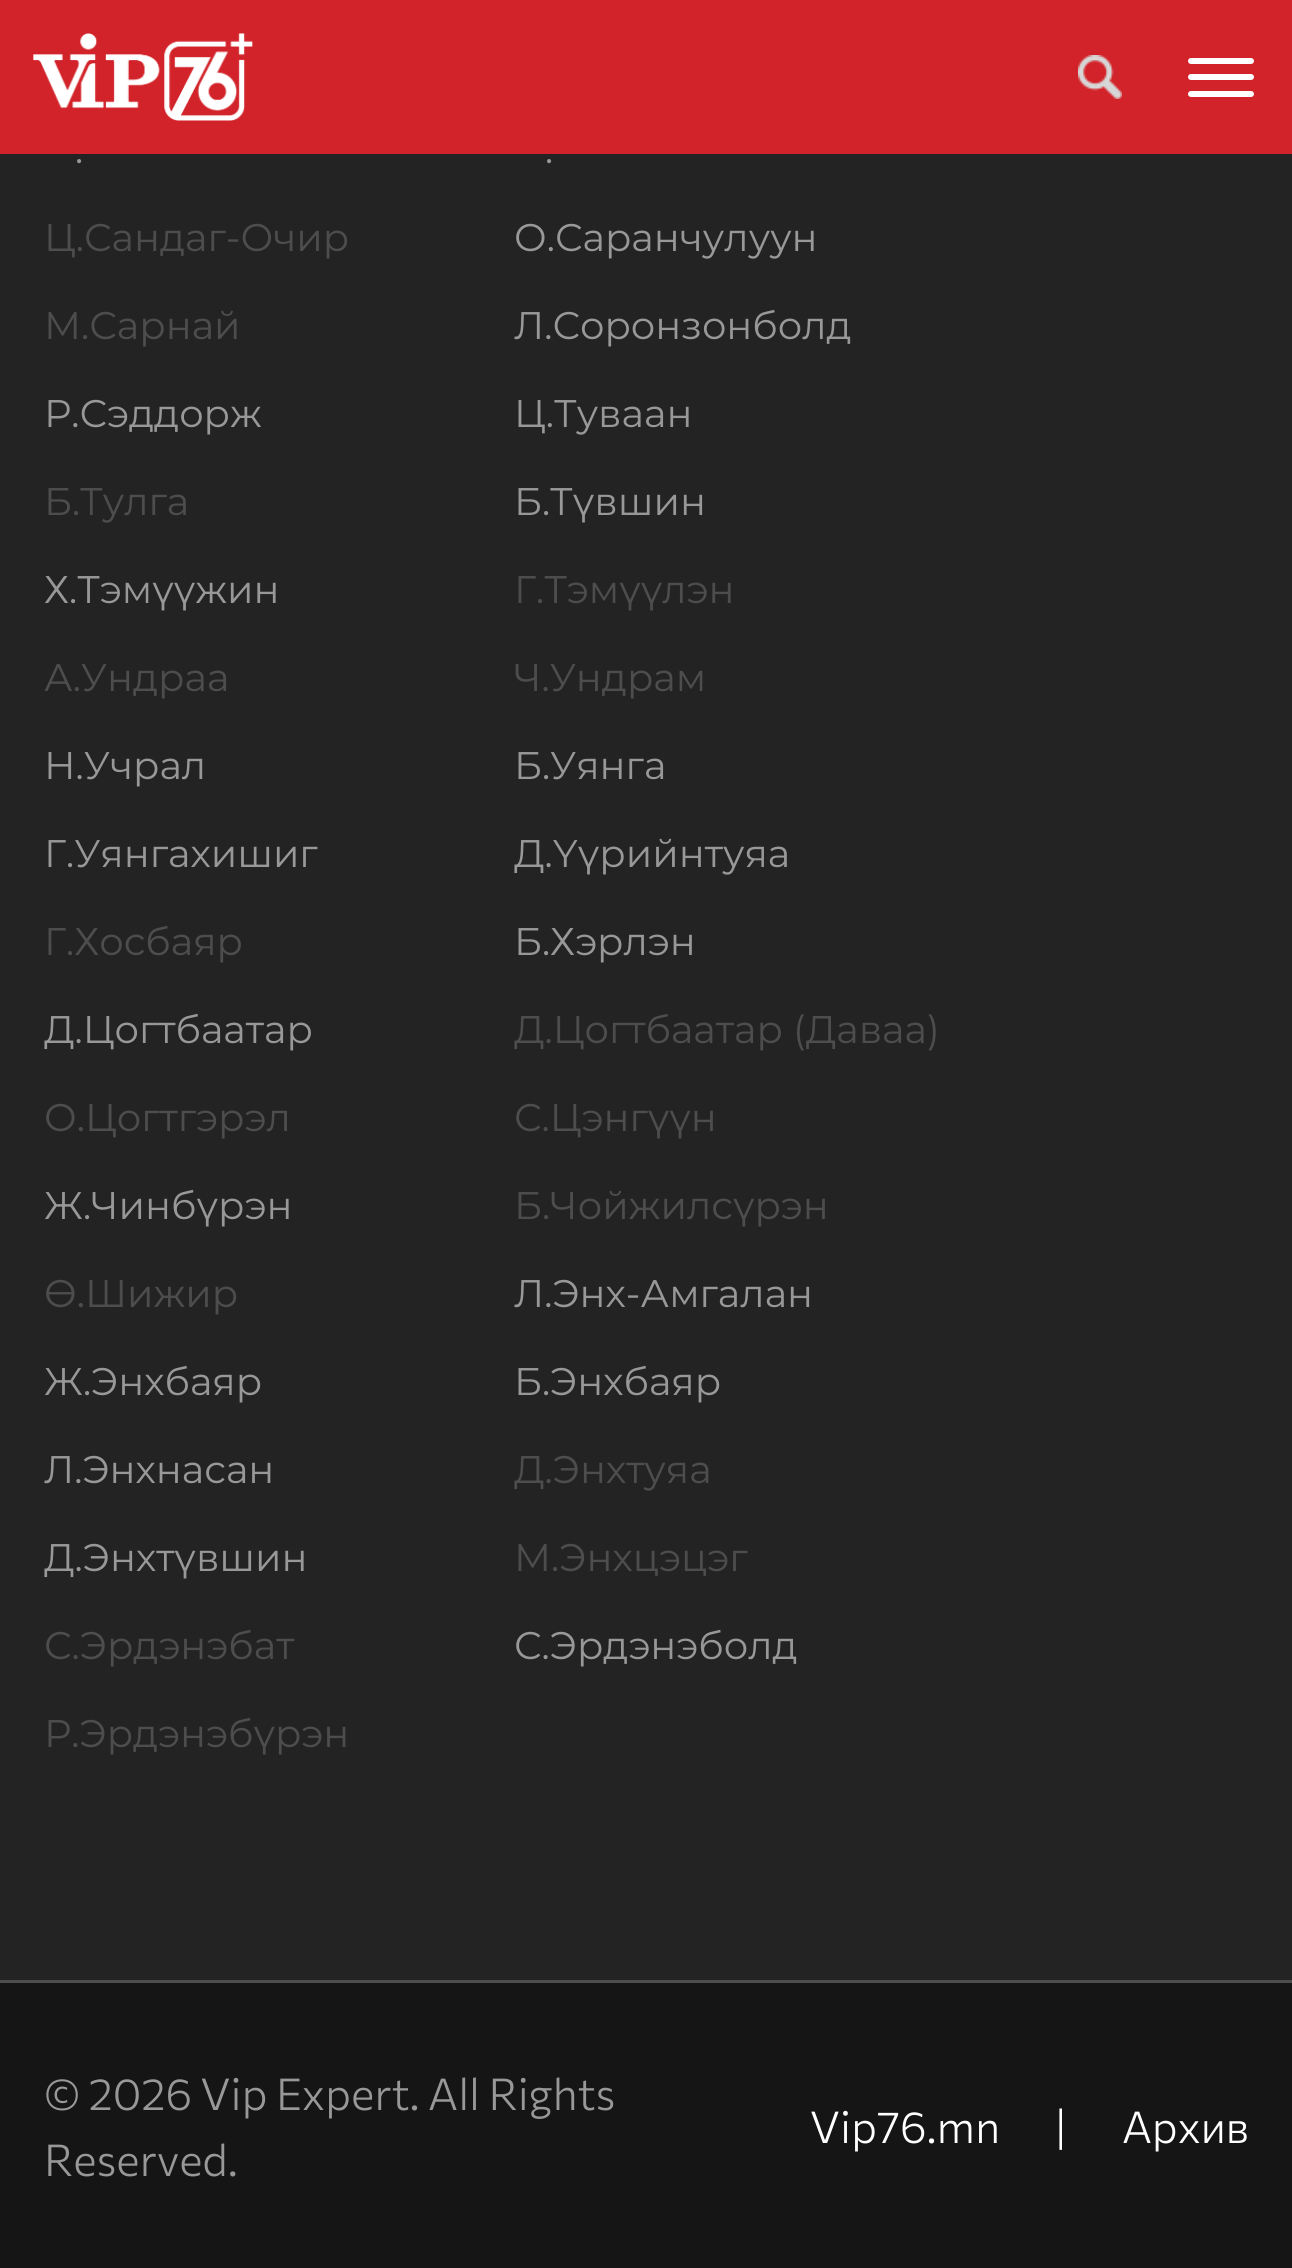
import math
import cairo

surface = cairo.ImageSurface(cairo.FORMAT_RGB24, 1292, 2268)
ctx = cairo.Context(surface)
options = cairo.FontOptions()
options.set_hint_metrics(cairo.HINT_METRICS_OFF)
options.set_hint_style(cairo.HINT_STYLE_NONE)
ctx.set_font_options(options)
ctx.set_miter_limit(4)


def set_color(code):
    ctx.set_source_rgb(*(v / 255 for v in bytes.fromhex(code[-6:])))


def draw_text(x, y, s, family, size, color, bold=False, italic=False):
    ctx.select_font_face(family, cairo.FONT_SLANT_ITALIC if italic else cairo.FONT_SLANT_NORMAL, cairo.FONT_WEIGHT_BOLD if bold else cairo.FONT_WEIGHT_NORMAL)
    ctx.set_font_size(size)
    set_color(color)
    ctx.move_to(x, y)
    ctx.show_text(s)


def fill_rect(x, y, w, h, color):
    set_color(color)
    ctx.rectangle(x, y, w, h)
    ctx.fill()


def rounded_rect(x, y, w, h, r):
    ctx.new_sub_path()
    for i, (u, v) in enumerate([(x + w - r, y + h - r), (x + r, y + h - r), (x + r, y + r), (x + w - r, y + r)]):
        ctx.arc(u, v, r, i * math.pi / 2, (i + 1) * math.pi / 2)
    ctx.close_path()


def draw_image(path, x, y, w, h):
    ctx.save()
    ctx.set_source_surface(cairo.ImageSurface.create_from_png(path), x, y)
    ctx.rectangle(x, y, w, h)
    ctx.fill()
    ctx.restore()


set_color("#232323")
ctx.paint()
fill_rect(0, 0, 1292, 154, "#d2232a")
draw_image("assets/img1.png", 33, 33, 220, 88)
draw_image("assets/img2.png", 1078, 55, 44, 44)
set_color("#ffffff")
rounded_rect(1188, 58, 66, 6, 3)
ctx.fill()
rounded_rect(1188, 74, 66, 6, 3)
ctx.fill()
rounded_rect(1188, 91, 66, 6, 3)
ctx.fill()
draw_text(75, 163, ".", "Montserrat", 38.5, "#989898")
draw_text(545, 163, ".", "Montserrat", 38.5, "#989898")
draw_text(44, 251, "Ц.Сандаг-Очир", "Montserrat", 38.5, "#4d4d4d")
draw_text(514, 251, "О.Саранчулуун", "Montserrat", 38.5, "#989898")
draw_text(44, 339, "М.Сарнай", "Montserrat", 38.5, "#4d4d4d")
draw_text(514, 339, "Л.Соронзонболд", "Montserrat", 38.5, "#989898")
draw_text(44, 427, "Р.Сэддорж", "Montserrat", 38.5, "#989898")
draw_text(514, 427, "Ц.Туваан", "Montserrat", 38.5, "#989898")
draw_text(44, 515, "Б.Тулга", "Montserrat", 38.5, "#4d4d4d")
draw_text(514, 515, "Б.Түвшин", "Montserrat", 38.5, "#989898")
draw_text(44, 603, "Х.Тэмүүжин", "Montserrat", 38.5, "#989898")
draw_text(514, 603, "Г.Тэмүүлэн", "Montserrat", 38.5, "#4d4d4d")
draw_text(44, 691, "А.Ундраа", "Montserrat", 38.5, "#4d4d4d")
draw_text(514, 691, "Ч.Ундрам", "Montserrat", 38.5, "#4d4d4d")
draw_text(44, 779, "Н.Учрал", "Montserrat", 38.5, "#989898")
draw_text(514, 779, "Б.Уянга", "Montserrat", 38.5, "#989898")
draw_text(44, 867, "Г.Уянгахишиг", "Montserrat", 38.5, "#989898")
draw_text(514, 867, "Д.Үүрийнтуяа", "Montserrat", 38.5, "#989898")
draw_text(44, 955, "Г.Хосбаяр", "Montserrat", 38.5, "#4d4d4d")
draw_text(514, 955, "Б.Хэрлэн", "Montserrat", 38.5, "#989898")
draw_text(44, 1043, "Д.Цогтбаатар", "Montserrat", 38.5, "#989898")
draw_text(514, 1043, "Д.Цогтбаатар (Даваа)", "Montserrat", 38.5, "#4d4d4d")
draw_text(44, 1131, "О.Цогтгэрэл", "Montserrat", 38.5, "#4d4d4d")
draw_text(514, 1131, "С.Цэнгүүн", "Montserrat", 38.5, "#4d4d4d")
draw_text(44, 1219, "Ж.Чинбүрэн", "Montserrat", 38.5, "#989898")
draw_text(514, 1219, "Б.Чойжилсүрэн", "Montserrat", 38.5, "#4d4d4d")
draw_text(44, 1307, "Ө.Шижир", "Montserrat", 38.5, "#4d4d4d")
draw_text(514, 1307, "Л.Энх-Амгалан", "Montserrat", 38.5, "#989898")
draw_text(44, 1395, "Ж.Энхбаяр", "Montserrat", 38.5, "#989898")
draw_text(514, 1395, "Б.Энхбаяр", "Montserrat", 38.5, "#989898")
draw_text(44, 1483, "Л.Энхнасан", "Montserrat", 38.5, "#989898")
draw_text(514, 1483, "Д.Энхтуяа", "Montserrat", 38.5, "#4d4d4d")
draw_text(44, 1571, "Д.Энхтүвшин", "Montserrat", 38.5, "#989898")
draw_text(514, 1571, "М.Энхцэцэг", "Montserrat", 38.5, "#4d4d4d")
draw_text(44, 1659, "С.Эрдэнэбат", "Montserrat", 38.5, "#4d4d4d")
draw_text(514, 1659, "С.Эрдэнэболд", "Montserrat", 38.5, "#989898")
draw_text(44, 1747, "Р.Эрдэнэбүрэн", "Montserrat", 38.5, "#4d4d4d")
fill_rect(0, 1983, 1292, 285, "#151515")
fill_rect(0, 1980, 1292, 3, "#4d4d4d")
draw_text(44, 2110, "© 2026 Vip Expert. All Rights", "Commissioner Light", 44, "#989898")
draw_text(44, 2176, "Reserved.", "Commissioner Light", 44, "#989898")
draw_text(810, 2143, "Vip76.mn", "Commissioner Light", 44, "#ffffff")
draw_text(1055, 2143, "|", "Commissioner Light", 44, "#ffffff")
draw_text(1122, 2143, "Архив", "Commissioner Light", 44, "#ffffff")
surface.write_to_png("output.png")
